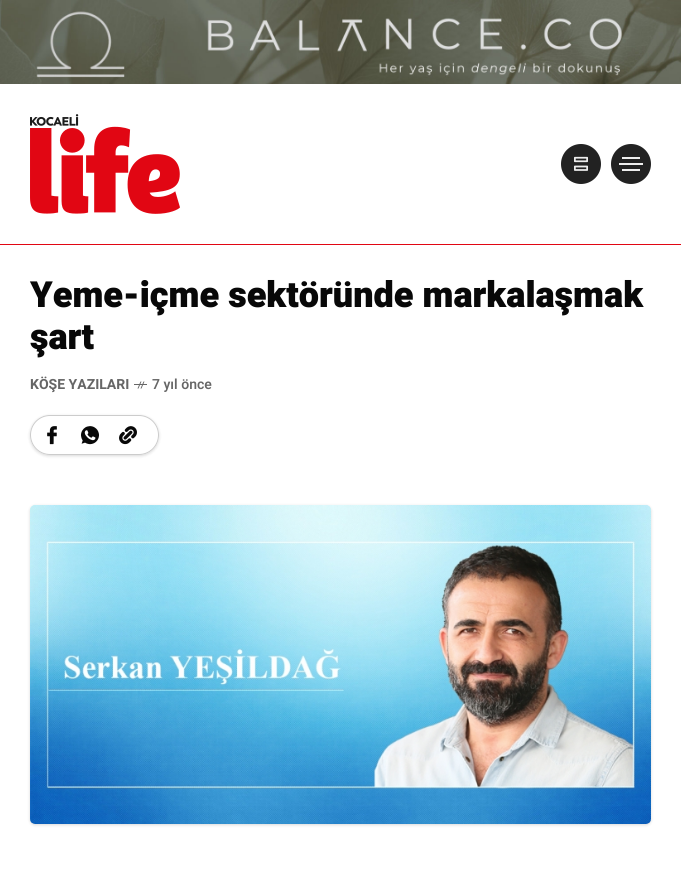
import math
import cairo

surface = cairo.ImageSurface(cairo.FORMAT_RGB24, 681, 871)
ctx = cairo.Context(surface)
options = cairo.FontOptions()
options.set_hint_metrics(cairo.HINT_METRICS_OFF)
options.set_hint_style(cairo.HINT_STYLE_NONE)
ctx.set_font_options(options)
ctx.set_miter_limit(4)


def set_color(code):
    ctx.set_source_rgb(*(v / 255 for v in bytes.fromhex(code[-6:])))


def draw_text(x, y, s, family, size, color, bold=False, italic=False):
    ctx.select_font_face(family, cairo.FONT_SLANT_ITALIC if italic else cairo.FONT_SLANT_NORMAL, cairo.FONT_WEIGHT_BOLD if bold else cairo.FONT_WEIGHT_NORMAL)
    ctx.set_font_size(size)
    set_color(color)
    ctx.move_to(x, y)
    ctx.show_text(s)


def fill_rect(x, y, w, h, color):
    set_color(color)
    ctx.rectangle(x, y, w, h)
    ctx.fill()


def rounded_rect(x, y, w, h, r):
    ctx.new_sub_path()
    for i, (u, v) in enumerate([(x + w - r, y + h - r), (x + r, y + h - r), (x + r, y + r), (x + w - r, y + r)]):
        ctx.arc(u, v, r, i * math.pi / 2, (i + 1) * math.pi / 2)
    ctx.close_path()


def draw_shadow(x, y, w, h, r, blur, alpha):
    ctx.push_group_with_content(cairo.CONTENT_ALPHA)
    ctx.set_operator(cairo.OPERATOR_SOURCE)
    for i in range(15, -16, -2):
        e = blur * i / 6
        if min(w, h) + 2 * e > 0:
            ctx.set_source_rgba(0, 0, 0, alpha * math.erfc((i - 1) / 8.5) / 2)
            rounded_rect(x - e, y - e, w + 2 * e, h + 2 * e, max(0, min(r + e + blur * .6, min(w, h) / 2 + e)))
            ctx.fill()
    ctx.mask(ctx.pop_group())


def draw_image(path, x, y, w, h):
    ctx.save()
    ctx.set_source_surface(cairo.ImageSurface.create_from_png(path), x, y)
    ctx.rectangle(x, y, w, h)
    ctx.fill()
    ctx.restore()


set_color("#ffffff")
ctx.paint()
draw_image("assets/img1.png", 0, 0, 681, 84)
fill_rect(0, 244, 681, 1, "#e10613")
draw_image("assets/img2.png", 30, 114, 150, 100)
set_color("#222222")
ctx.arc(581, 164, 20, 0, 2 * math.pi)
ctx.fill()
draw_image("assets/img3.png", 574, 156, 14, 15)
ctx.arc(631, 164, 20, 0, 2 * math.pi)
ctx.fill()
fill_rect(619, 163, 24, 2, "#eeeeee")
fill_rect(622, 157, 18, 2, "#eeeeee")
fill_rect(622, 169, 18, 2, "#eeeeee")
draw_text(30, 307, "Yeme-içme sektöründe markalaşmak", "Heebo Black", 36, "#080808")
draw_text(30, 349, "şart", "Heebo Black", 36, "#080808")
draw_text(30, 389, "KÖŞE YAZILARI", "Heebo", 14, "#666666", bold=True)
fill_rect(134, 384, 13, 1, "#666666")
ctx.new_path()
ctx.move_to(143.5, 381.5)
ctx.line_to(144.5, 381.5)
ctx.line_to(141.5, 388.5)
ctx.line_to(140.5, 388.5)
ctx.close_path()
ctx.fill()
ctx.new_path()
ctx.move_to(140.5, 381.5)
ctx.line_to(141.5, 381.5)
ctx.line_to(138.5, 388.5)
ctx.line_to(137.5, 388.5)
ctx.close_path()
ctx.fill()
draw_text(152, 389, "7 yıl önce", "Heebo SemiBold", 14, "#666666")
ctx.save()
ctx.set_fill_rule(cairo.FILL_RULE_EVEN_ODD)
ctx.new_path()
ctx.move_to(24, 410)
ctx.line_to(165, 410)
ctx.line_to(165, 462)
ctx.line_to(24, 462)
ctx.close_path()
ctx.move_to(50, 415)
ctx.line_to(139, 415)
ctx.curve_to(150, 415, 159, 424, 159, 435)
ctx.curve_to(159, 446, 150, 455, 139, 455)
ctx.line_to(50, 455)
ctx.curve_to(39, 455, 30, 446, 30, 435)
ctx.curve_to(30, 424, 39, 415, 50, 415)
ctx.close_path()
ctx.clip()
set_color("#000000")
draw_shadow(30, 416, 129, 40, 20, 1.5, 0.15)
ctx.restore()
rounded_rect(30.5, 415.5, 128, 39, 19.5)
set_color("#cccccc")
ctx.set_line_width(1)
ctx.stroke()
draw_image("assets/img4.png", 47, 426, 10, 19)
draw_image("assets/img5.png", 81, 426, 18, 19)
draw_image("assets/img6.png", 119, 426, 18, 19)
set_color("#000000")
draw_shadow(30, 506, 621, 319, 5, 1.5, 0.15)
draw_image("assets/img7.png", 30, 505, 621, 319)
surface.write_to_png("output.png")
